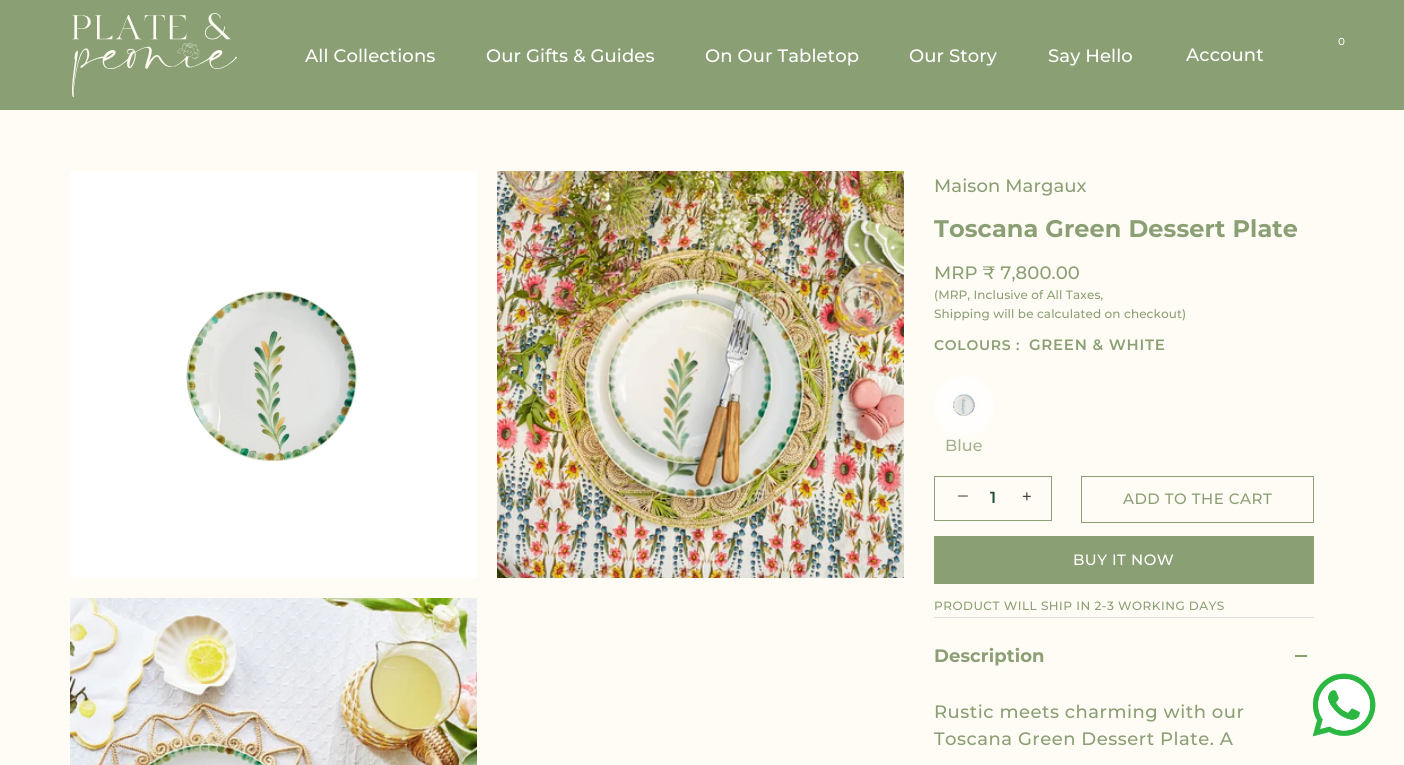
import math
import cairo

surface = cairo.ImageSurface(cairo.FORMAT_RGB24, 1404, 765)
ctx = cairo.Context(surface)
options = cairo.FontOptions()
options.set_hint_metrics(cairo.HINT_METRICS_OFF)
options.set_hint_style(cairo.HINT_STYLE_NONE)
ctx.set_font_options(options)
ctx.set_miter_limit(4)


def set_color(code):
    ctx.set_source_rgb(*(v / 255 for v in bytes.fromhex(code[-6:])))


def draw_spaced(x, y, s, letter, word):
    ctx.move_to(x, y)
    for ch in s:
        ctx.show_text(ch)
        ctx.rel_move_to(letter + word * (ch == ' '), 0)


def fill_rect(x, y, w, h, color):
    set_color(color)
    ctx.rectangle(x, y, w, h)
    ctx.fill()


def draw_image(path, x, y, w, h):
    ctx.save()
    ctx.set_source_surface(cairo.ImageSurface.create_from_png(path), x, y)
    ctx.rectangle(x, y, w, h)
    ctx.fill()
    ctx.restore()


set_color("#fffcf5")
ctx.paint()
fill_rect(0, 0, 1404, 110, "#8a9f74")
draw_image("assets/img1.png", 72, 13, 165, 84)
ctx.select_font_face("Montserrat Medium")
ctx.set_font_size(18)
set_color("#ffffff")
draw_spaced(305, 62, "All Collections", 0.1, 0)
draw_spaced(486, 62, "Our Gifts & Guides", 0.1, 0)
draw_spaced(705, 62, "On Our Tabletop", 0.1, 0)
draw_spaced(909, 62, "Our Story", 0.1, 0)
draw_spaced(1048, 62, "Say Hello", 0.1, 0)
ctx.select_font_face("Cabin")
ctx.set_font_size(10)
draw_spaced(1338, 45, "0", 0.1, 0)
ctx.select_font_face("Montserrat Medium")
ctx.set_font_size(18)
draw_spaced(1186, 61, "Account", 0.1, 0)
draw_image("assets/img2.png", 70, 171, 407, 407)
draw_image("assets/img3.png", 70, 598, 407, 167)
draw_image("assets/img4.png", 497, 171, 407, 407)
set_color("#8b9f75")
draw_spaced(934, 192, "Maison Margaux", 0.1, 0)
ctx.select_font_face("Montserrat", cairo.FONT_SLANT_NORMAL, cairo.FONT_WEIGHT_BOLD)
ctx.set_font_size(24)
draw_spaced(934, 237, "Toscana Green Dessert Plate", 0.1, 0)
ctx.select_font_face("Montserrat Medium")
ctx.set_font_size(18)
draw_spaced(934, 279, "MRP ₹ 7,800.00", 0.1, 0)
ctx.set_font_size(12)
draw_spaced(934, 299, "(MRP, Inclusive of All Taxes,", 0.1, 0)
draw_spaced(934, 318, "Shipping will be calculated on checkout)", 0.1, 0)
ctx.select_font_face("Montserrat SemiBold")
ctx.set_font_size(14)
draw_spaced(934, 350, "COLOURS :", 0.75, 0)
ctx.set_font_size(15)
draw_spaced(1029, 350, "GREEN & WHITE", 0.75, 0)
draw_image("assets/img5.png", 934, 376, 60, 60)
ctx.select_font_face("Montserrat Medium")
ctx.set_font_size(16)
set_color("#a2b28f")
draw_spaced(945, 451, "Blue", 0.1, 0)
ctx.rectangle(934.5, 476.5, 117, 44)
set_color("#8b9f75")
ctx.set_line_width(1)
ctx.stroke()
ctx.select_font_face("Liberation Serif")
ctx.set_font_size(21)
set_color("#423f3f")
draw_spaced(957, 503, "−", 0.1, 0)
ctx.select_font_face("Montserrat SemiBold")
ctx.set_font_size(16)
set_color("#215137")
draw_spaced(990, 503, "1", 1, 0)
ctx.select_font_face("Liberation Serif", cairo.FONT_SLANT_NORMAL, cairo.FONT_WEIGHT_BOLD)
ctx.set_font_size(17)
set_color("#423f3f")
draw_spaced(1022, 502, "+", 0.1, 0)
ctx.rectangle(1081.5, 476.5, 232, 46)
set_color("#8b9f75")
ctx.stroke()
ctx.select_font_face("Montserrat Medium")
ctx.set_font_size(15)
draw_spaced(1123, 504, "ADD TO THE CART", 0.5, 0)
fill_rect(934, 536, 380, 48, "#8b9f75")
set_color("#ffffff")
draw_spaced(1073, 565, "BUY IT NOW", 0.5, 0)
ctx.set_font_size(12)
set_color("#8b9f75")
draw_spaced(934, 610, "PRODUCT WILL SHIP IN 2-3 WORKING DAYS", 0.5, 0)
fill_rect(934, 617, 380, 1, "#dddddd")
ctx.select_font_face("Montserrat", cairo.FONT_SLANT_NORMAL, cairo.FONT_WEIGHT_BOLD)
ctx.set_font_size(18)
set_color("#8b9f75")
draw_spaced(934, 662, "Description", 0.1, 0)
fill_rect(1295, 655, 12, 2, "#86a170")
ctx.select_font_face("Montserrat Medium")
set_color("#8b9f75")
draw_spaced(934, 718, "Rustic meets charming with our", 0.5, 0)
draw_spaced(934, 745, "Toscana Green Dessert Plate. A", 0.5, 0)
draw_image("assets/img6.png", 1312, 673, 64, 64)
surface.write_to_png("output.png")
